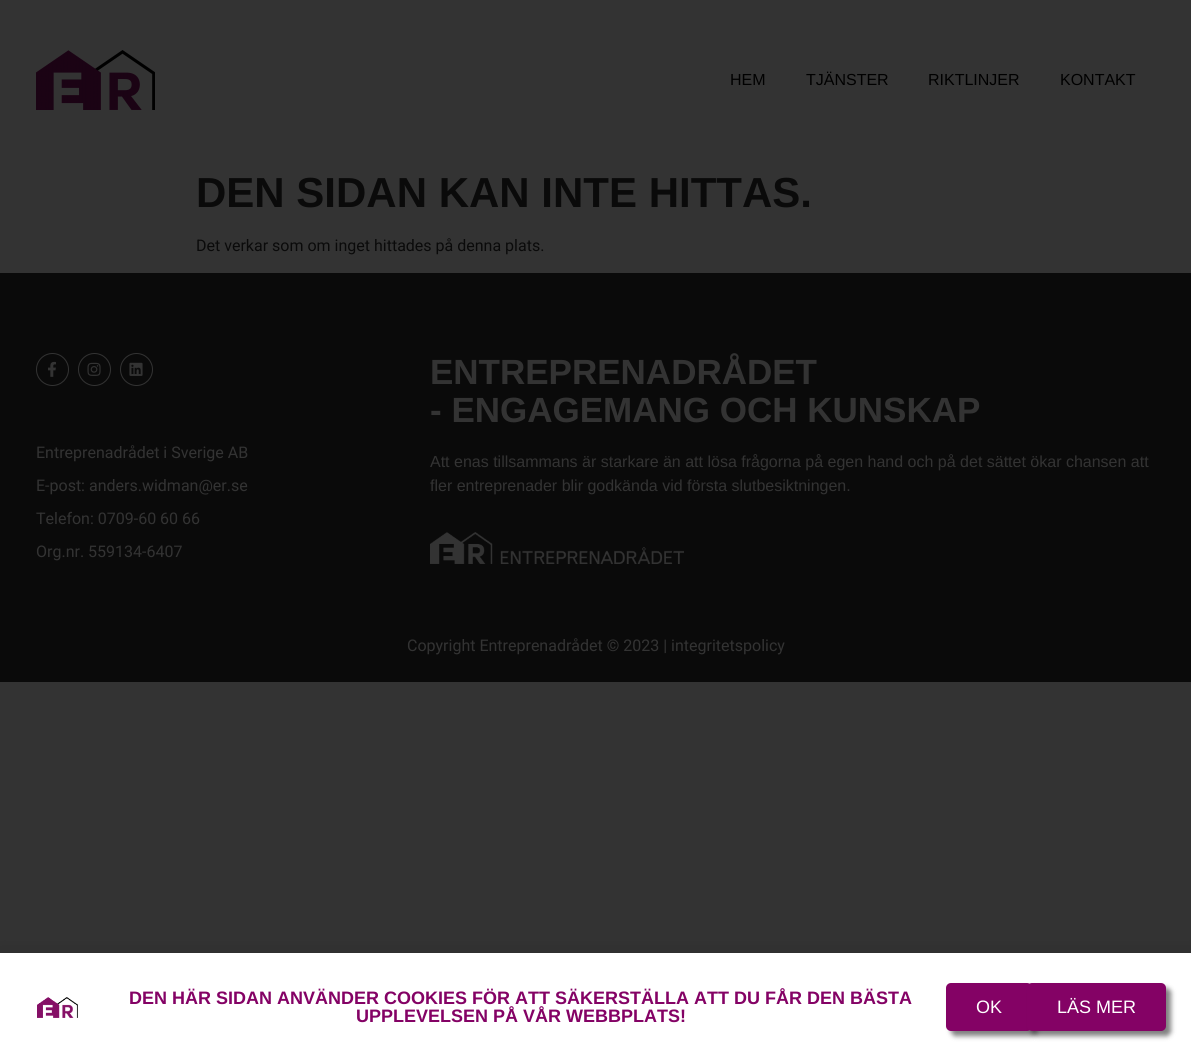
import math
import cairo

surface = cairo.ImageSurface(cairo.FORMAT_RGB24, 1191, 1061)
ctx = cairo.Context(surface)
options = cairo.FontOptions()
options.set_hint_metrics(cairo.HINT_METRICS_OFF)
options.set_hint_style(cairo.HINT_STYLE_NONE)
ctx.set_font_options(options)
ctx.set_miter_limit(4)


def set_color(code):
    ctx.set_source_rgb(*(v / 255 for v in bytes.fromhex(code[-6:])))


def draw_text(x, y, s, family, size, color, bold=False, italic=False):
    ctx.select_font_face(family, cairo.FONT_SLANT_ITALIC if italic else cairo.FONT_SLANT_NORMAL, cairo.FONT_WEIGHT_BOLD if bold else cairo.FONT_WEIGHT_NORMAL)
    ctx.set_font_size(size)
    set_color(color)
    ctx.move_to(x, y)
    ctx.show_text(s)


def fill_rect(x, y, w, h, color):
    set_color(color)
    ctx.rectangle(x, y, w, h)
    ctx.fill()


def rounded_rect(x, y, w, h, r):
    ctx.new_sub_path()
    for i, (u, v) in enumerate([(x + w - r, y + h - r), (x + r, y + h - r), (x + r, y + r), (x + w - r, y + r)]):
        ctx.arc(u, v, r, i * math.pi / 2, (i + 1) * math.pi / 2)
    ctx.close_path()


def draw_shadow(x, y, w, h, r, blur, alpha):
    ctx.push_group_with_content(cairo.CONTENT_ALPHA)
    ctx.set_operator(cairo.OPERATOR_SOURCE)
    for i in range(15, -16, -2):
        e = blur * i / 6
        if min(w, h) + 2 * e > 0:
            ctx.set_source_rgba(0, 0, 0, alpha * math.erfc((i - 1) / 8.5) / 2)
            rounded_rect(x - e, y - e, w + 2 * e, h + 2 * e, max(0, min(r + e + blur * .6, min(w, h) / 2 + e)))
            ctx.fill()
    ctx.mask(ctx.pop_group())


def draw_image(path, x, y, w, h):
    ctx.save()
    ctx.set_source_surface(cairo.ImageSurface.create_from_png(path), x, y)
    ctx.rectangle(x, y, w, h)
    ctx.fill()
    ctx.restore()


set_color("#333333")
ctx.paint()
draw_image("assets/img1.png", 36, 50, 119, 60)
draw_text(730, 85, "HEM", "Liberation Sans", 16, "#000000")
draw_text(806, 85, "TJÄNSTER", "Liberation Sans", 16, "#000000")
draw_text(928, 85, "RIKTLINJER", "Liberation Sans", 16, "#000000")
draw_text(1060, 85, "KONTAKT", "Liberation Sans", 16, "#000000")
draw_text(196, 207, "DEN SIDAN KAN INTE HITTAS.", "Liberation Sans", 42, "#0a0a0a", bold=True)
draw_text(196, 251, "Det verkar som om inget hittades på denna plats.", "Roboto", 16, "#0a0a0a")
fill_rect(0, 273, 1191, 409, "#0a0a0a")
ctx.new_path()
ctx.arc(52.5, 369.5, 16, 0, 2 * math.pi)
set_color("#333333")
ctx.set_line_width(1)
ctx.stroke()
draw_image("assets/img2.png", 48, 361, 8, 16)
ctx.arc(94.5, 369.5, 16, 0, 2 * math.pi)
ctx.stroke()
draw_image("assets/img3.png", 87, 362, 14, 14)
ctx.arc(136.5, 369.5, 16, 0, 2 * math.pi)
ctx.stroke()
draw_image("assets/img4.png", 129, 362, 14, 14)
draw_text(36, 458, "Entreprenadrådet i Sverige AB", "Roboto", 16, "#333333")
draw_text(36, 491, "E-post: anders.widman@er.se", "Roboto", 16, "#333333")
draw_text(36, 524, "Telefon: 0709-60 60 66", "Roboto", 16, "#333333")
draw_text(36, 557, "Org.nr. 559134-6407", "Roboto", 16, "#333333")
draw_text(430, 384, "ENTREPRENADRÅDET", "Liberation Sans", 35, "#333333", bold=True)
draw_text(430, 422, "- ENGAGEMANG OCH KUNSKAP", "Liberation Sans", 35, "#333333", bold=True)
draw_text(430, 467, "Att enas tillsammans är starkare än att lösa frågorna på egen hand och på det sättet ökar chansen att", "Liberation Sans", 16, "#333333")
draw_text(430, 491, "fler entreprenader blir godkända vid första slutbesiktningen.", "Liberation Sans", 16, "#333333")
draw_image("assets/img5.png", 430, 532, 254, 32)
draw_text(407, 651, "Copyright Entreprenadrådet © 2023 | integritetspolicy", "Roboto", 16, "#333333")
set_color("#000000")
draw_shadow(-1, 958, 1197, 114, 0, 11.5, 0.2)
fill_rect(0, 953, 1191, 108, "#ffffff")
draw_image("assets/img6.png", 37, 997, 41, 21)
draw_text(129, 1004, "DEN HÄR SIDAN ANVÄNDER COOKIES FÖR ATT SÄKERSTÄLLA ATT DU FÅR DEN BÄSTA", "Liberation Sans", 18, "#840265", bold=True)
draw_text(356, 1022, "UPPLEVELSEN PÅ VÅR WEBBPLATS!", "Liberation Sans", 18, "#840265", bold=True)
set_color("#000000")
draw_shadow(951, 988, 86, 48, 5, 2.5, 0.5)
set_color("#840265")
rounded_rect(946, 983, 86, 48, 5)
ctx.fill()
draw_text(976, 1013, "OK", "Liberation Sans", 18, "#ffffff")
set_color("#000000")
draw_shadow(1032, 988, 139, 48, 5, 2.5, 0.5)
set_color("#840265")
rounded_rect(1027, 983, 139, 48, 5)
ctx.fill()
draw_text(1057, 1013, "LÄS MER", "Liberation Sans", 18, "#ffffff")
surface.write_to_png("output.png")
